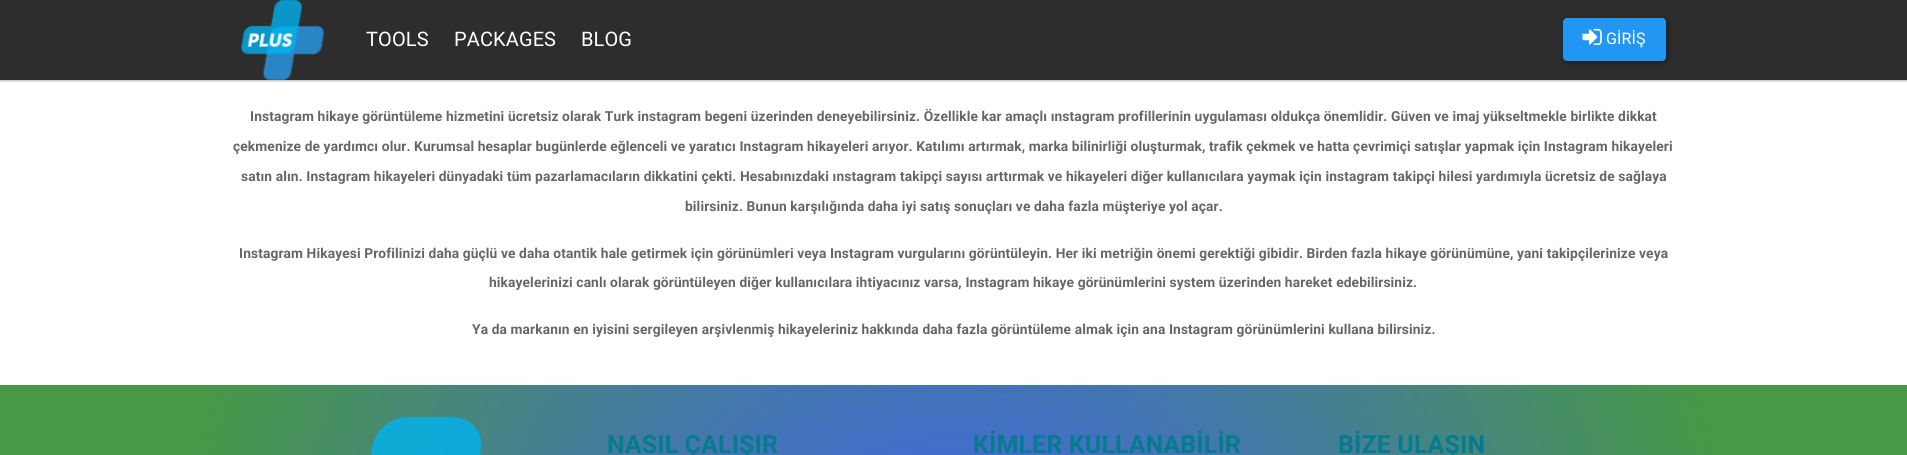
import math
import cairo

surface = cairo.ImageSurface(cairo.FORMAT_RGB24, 1907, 455)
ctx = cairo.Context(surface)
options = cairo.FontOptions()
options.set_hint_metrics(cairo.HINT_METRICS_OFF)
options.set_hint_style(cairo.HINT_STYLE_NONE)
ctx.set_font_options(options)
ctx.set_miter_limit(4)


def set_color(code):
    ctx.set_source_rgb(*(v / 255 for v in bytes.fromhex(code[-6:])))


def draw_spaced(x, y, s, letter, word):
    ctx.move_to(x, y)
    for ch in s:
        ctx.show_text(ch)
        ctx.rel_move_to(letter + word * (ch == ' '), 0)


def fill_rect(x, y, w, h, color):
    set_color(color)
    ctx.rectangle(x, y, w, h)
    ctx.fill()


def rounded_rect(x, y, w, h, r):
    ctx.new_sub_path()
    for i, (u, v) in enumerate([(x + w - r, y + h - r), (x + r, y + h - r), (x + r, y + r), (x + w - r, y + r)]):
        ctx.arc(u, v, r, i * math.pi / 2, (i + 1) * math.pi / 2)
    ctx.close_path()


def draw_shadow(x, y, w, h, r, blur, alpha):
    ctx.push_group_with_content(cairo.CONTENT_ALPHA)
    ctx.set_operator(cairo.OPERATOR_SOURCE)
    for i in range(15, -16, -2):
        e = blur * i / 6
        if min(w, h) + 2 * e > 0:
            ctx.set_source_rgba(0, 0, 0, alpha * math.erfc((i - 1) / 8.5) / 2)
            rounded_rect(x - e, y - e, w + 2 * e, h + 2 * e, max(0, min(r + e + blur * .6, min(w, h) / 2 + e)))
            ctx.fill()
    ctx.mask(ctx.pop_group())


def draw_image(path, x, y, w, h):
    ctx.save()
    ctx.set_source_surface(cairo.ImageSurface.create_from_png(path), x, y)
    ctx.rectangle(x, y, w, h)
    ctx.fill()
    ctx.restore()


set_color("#ffffff")
ctx.paint()
set_color("#000000")
draw_shadow(0, 1, 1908, 80, 0, 1, 0.3)
fill_rect(0, 0, 1907, 80, "#2d2d2d")
draw_image("assets/img1.png", 241, 0, 83, 80)
ctx.select_font_face("Roboto")
ctx.set_font_size(20)
set_color("#ffffff")
draw_spaced(366, 46, "TOOLS", 0.12, 0)
draw_spaced(454, 46, "PACKAGES", 0.12, 0)
draw_spaced(581, 46, "BLOG", 0.12, 0)
set_color("#000000")
draw_shadow(1564, 19, 104, 44, 4, 2.5, 0.4)
set_color("#2196f3")
rounded_rect(1563, 18, 103, 43, 4)
ctx.fill()
draw_image("assets/img2.png", 1582, 28, 20, 17)
ctx.set_font_size(16)
set_color("#ffffff")
draw_spaced(1606, 44, "GİRİŞ", 0.12, 0)
ctx.select_font_face("Roboto", cairo.FONT_SLANT_NORMAL, cairo.FONT_WEIGHT_BOLD)
ctx.set_font_size(13.75)
set_color("#666666")
draw_spaced(250, 121, "Instagram hikaye görüntüleme hizmetini ücretsiz olarak Turk instagram begeni üzerinden deneyebilirsiniz. Özellikle kar amaçlı ınstagram profillerinin uygulaması oldukça önemlidir. Güven ve imaj yükseltmekle birlikte dikkat", 0.12, 0)
draw_spaced(233, 151, "çekmenize de yardımcı olur. Kurumsal hesaplar bugünlerde eğlenceli ve yaratıcı Instagram hikayeleri arıyor. Katılımı artırmak, marka bilinirliği oluşturmak, trafik çekmek ve hatta çevrimiçi satışlar yapmak için Instagram hikayeleri", 0.12, 0)
draw_spaced(241, 181, "satın alın. Instagram hikayeleri dünyadaki tüm pazarlamacıların dikkatini çekti. Hesabınızdaki ınstagram takipçi sayısı arttırmak ve hikayeleri diğer kullanıcılara yaymak için instagram takipçi hilesi yardımıyla ücretsiz de sağlaya", 0.12, 0)
draw_spaced(685, 211, "bilirsiniz. Bunun karşılığında daha iyi satış sonuçları ve daha fazla müşteriye yol açar.", 0.12, 0)
draw_spaced(239, 258, "Instagram Hikayesi Profilinizi daha güçlü ve daha otantik hale getirmek için görünümleri veya Instagram vurgularını görüntüleyin. Her iki metriğin önemi gerektiği gibidir. Birden fazla hikaye görünümüne, yani takipçilerinize veya", 0.12, 0)
draw_spaced(489, 287, "hikayelerinizi canlı olarak görüntüleyen diğer kullanıcılara ihtiyacınız varsa, Instagram hikaye görünümlerini system üzerinden hareket edebilirsiniz.", 0.12, 0)
draw_spaced(472, 334, "Ya da markanın en iyisini sergileyen arşivlenmiş hikayeleriniz hakkında daha fazla görüntüleme almak için ana Instagram görünümlerini kullana bilirsiniz.", 0.12, 0)
gradient = cairo.RadialGradient(954, 674, 0, 954, 674, 997)
gradient.add_color_stop_rgba(0, 0.247, 0.369, 0.984, 1)
gradient.add_color_stop_rgba(0.8, 0.282, 0.596, 0.275, 1)
ctx.set_source(gradient)
ctx.rectangle(0, 385, 1907, 70)
ctx.fill()
draw_image("assets/img3.png", 370, 416, 112, 39)
ctx.set_font_size(25)
set_color("#047b8f")
draw_spaced(607, 453, "NASIL ÇALIŞIR", 0.12, 0)
draw_spaced(973, 453, "KİMLER KULLANABİLİR", 0.12, 0)
draw_spaced(1338, 453, "BİZE ULAŞIN", 0.12, 0)
surface.write_to_png("output.png")
